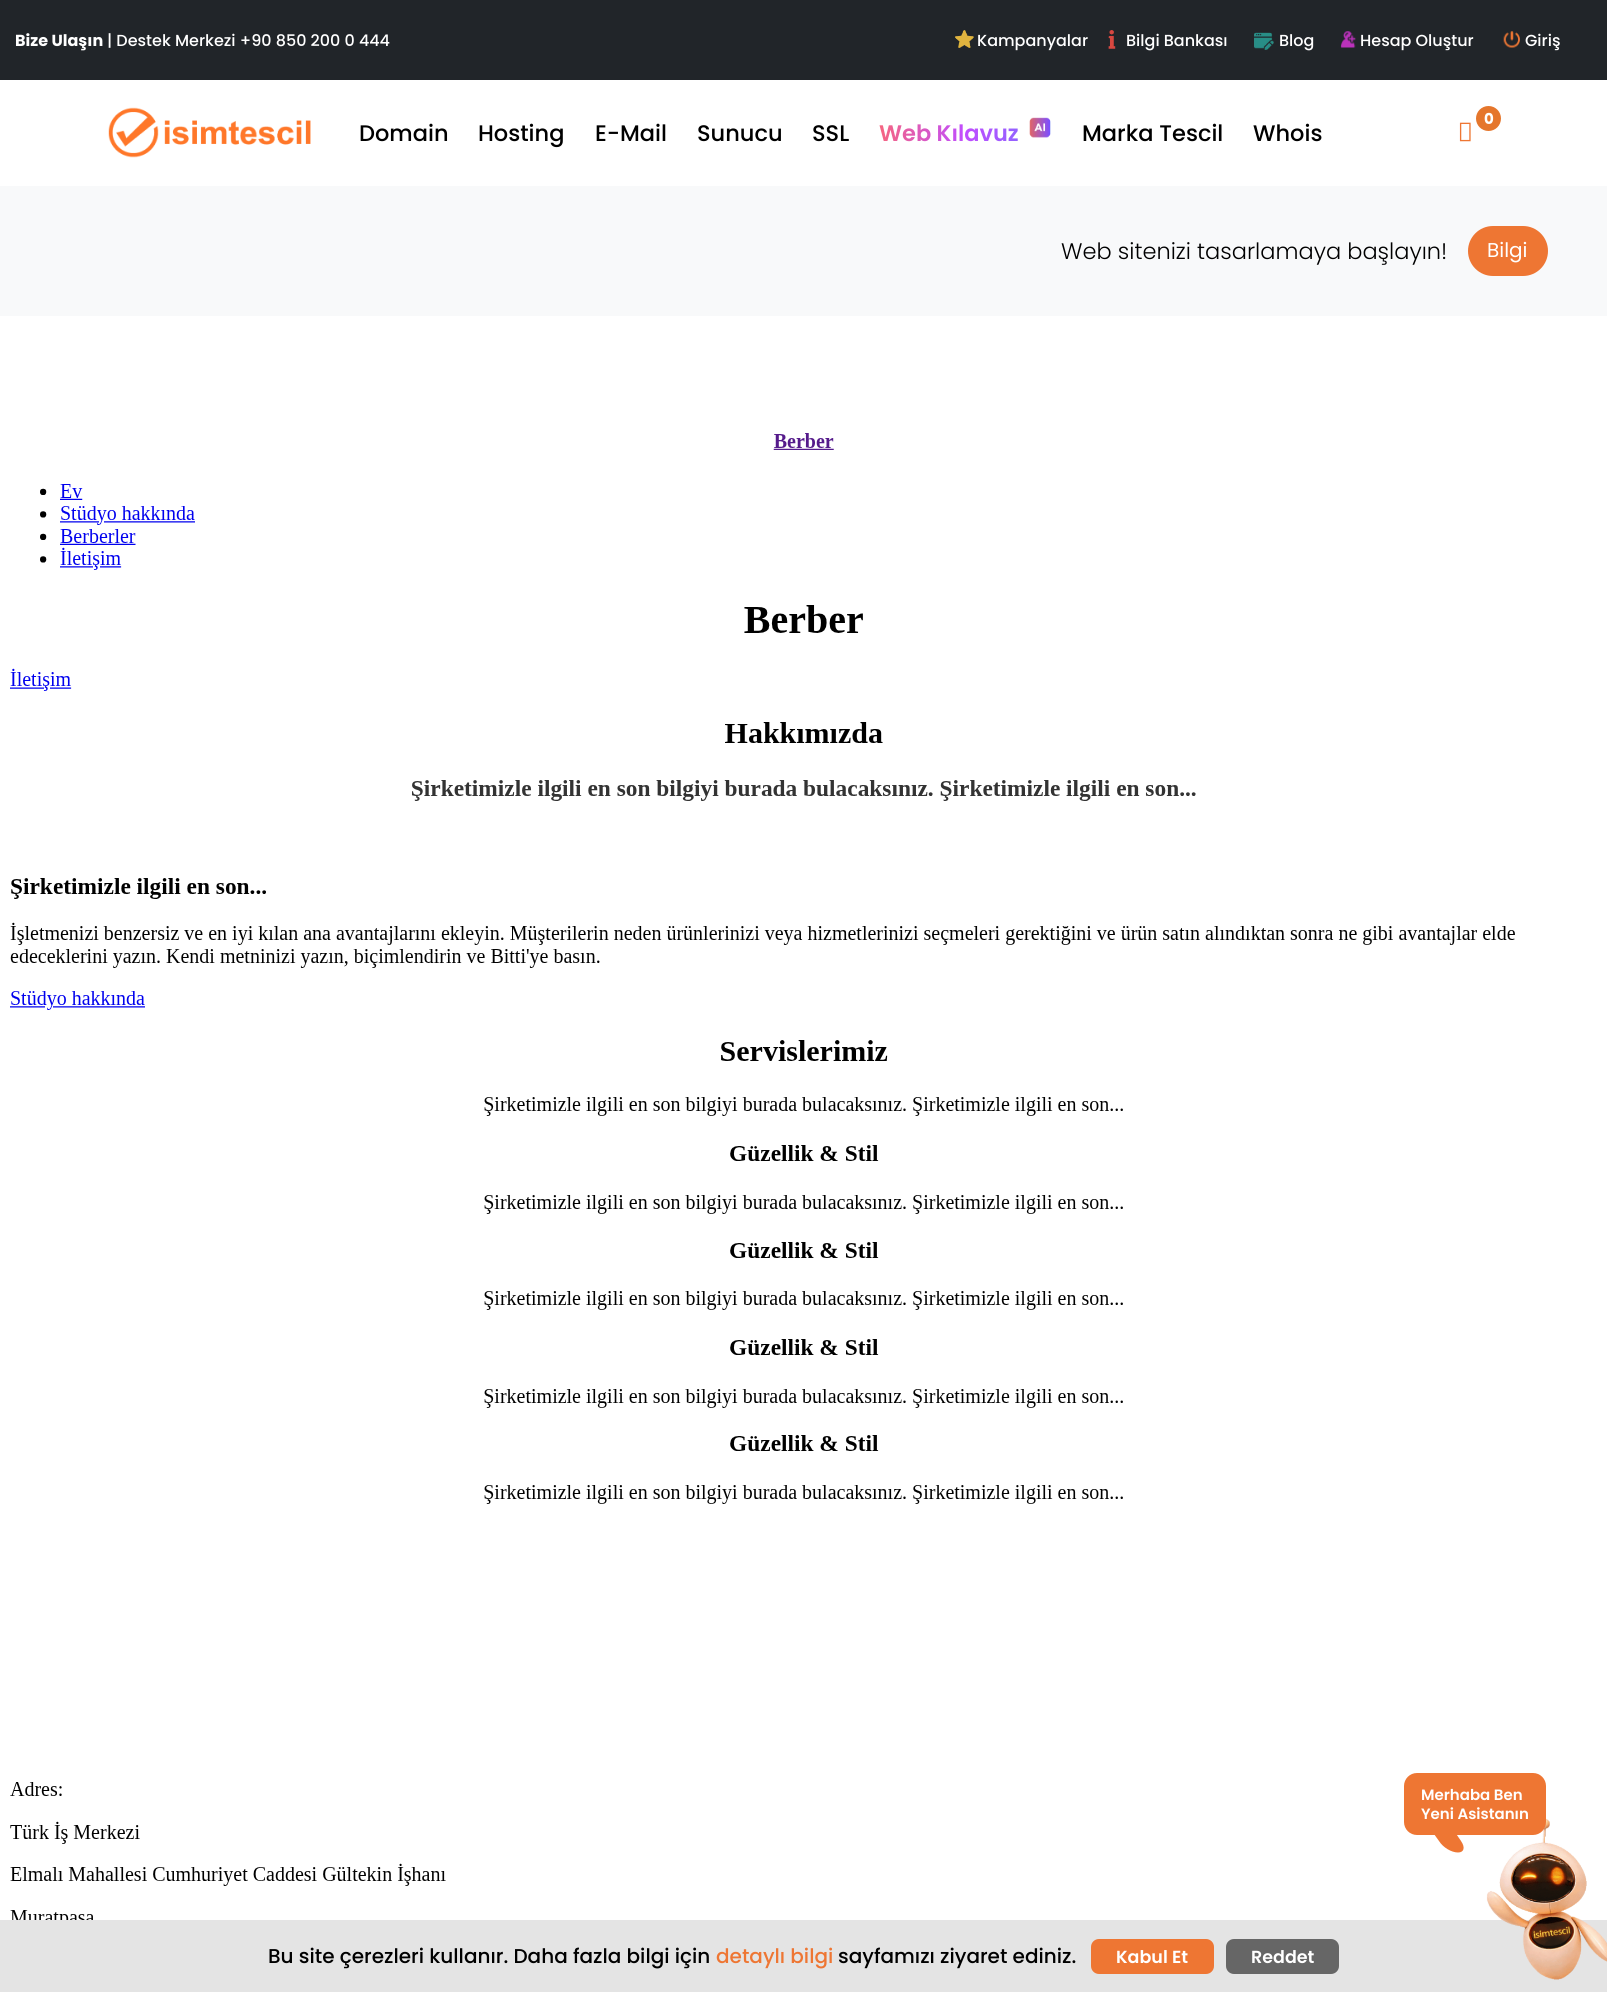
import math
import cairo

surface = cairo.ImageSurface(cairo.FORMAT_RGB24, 1607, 1992)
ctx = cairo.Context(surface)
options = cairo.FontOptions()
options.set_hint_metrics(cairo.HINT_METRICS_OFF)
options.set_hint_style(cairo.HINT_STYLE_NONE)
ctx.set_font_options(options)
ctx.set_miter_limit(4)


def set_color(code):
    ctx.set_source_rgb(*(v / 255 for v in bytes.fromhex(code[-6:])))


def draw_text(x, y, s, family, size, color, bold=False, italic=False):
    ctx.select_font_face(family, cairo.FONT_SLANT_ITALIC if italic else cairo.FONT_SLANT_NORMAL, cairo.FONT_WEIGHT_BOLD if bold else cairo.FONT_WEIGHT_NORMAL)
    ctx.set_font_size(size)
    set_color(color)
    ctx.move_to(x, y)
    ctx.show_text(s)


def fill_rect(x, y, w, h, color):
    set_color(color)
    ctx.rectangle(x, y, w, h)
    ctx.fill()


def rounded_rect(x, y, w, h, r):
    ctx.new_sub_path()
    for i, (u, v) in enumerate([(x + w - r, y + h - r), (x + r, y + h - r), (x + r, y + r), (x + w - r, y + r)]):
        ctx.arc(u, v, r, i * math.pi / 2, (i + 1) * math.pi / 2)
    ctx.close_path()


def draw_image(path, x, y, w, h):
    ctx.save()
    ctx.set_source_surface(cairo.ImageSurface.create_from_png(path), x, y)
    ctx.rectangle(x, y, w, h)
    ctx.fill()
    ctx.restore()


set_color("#ffffff")
ctx.paint()
fill_rect(0, 0, 1607, 80, "#212529")
draw_text(15, 46, "Bize Ulaşın", "Poppins", 16, "#ffffff", bold=True)
draw_text(107, 46, "| Destek Merkezi +90 850 200 0 444", "Poppins Medium", 16, "#ffffff")
draw_image("assets/img1.png", 955, 30, 19, 18)
draw_text(977, 46, "Kampanyalar", "Poppins Medium", 16, "#ffffff")
draw_image("assets/img2.png", 1108, 30, 8, 19)
draw_text(1126, 46, "Bilgi Bankası", "Poppins Medium", 16, "#ffffff")
draw_image("assets/img3.png", 1254, 32, 20, 18)
draw_text(1279, 46, "Blog", "Poppins Medium", 16, "#ffffff")
draw_image("assets/img4.png", 1340, 31, 16, 17)
draw_text(1360, 46, "Hesap Oluştur", "Poppins Medium", 16, "#ffffff")
draw_image("assets/img5.png", 1503, 31, 17, 17)
draw_text(1525, 46, "Giriş", "Poppins Medium", 16, "#ffffff")
draw_image("assets/img6.png", 108, 107, 203, 51)
set_color("#e5762c")
ctx.arc(1488.5, 118.5, 12.5, 0, 2 * math.pi)
ctx.fill()
draw_text(1484, 124, "0", "Poppins", 15, "#ffffff", bold=True)
draw_image("assets/img7.png", 1459, 122, 12, 20)
draw_text(359, 141, "Domain", "Poppins Medium", 22.5, "#000000")
draw_text(478, 141, "Hosting", "Poppins Medium", 22.5, "#000000")
draw_text(595, 141, "E-Mail", "Poppins Medium", 22.5, "#000000")
draw_text(697, 141, "Sunucu", "Poppins Medium", 22.5, "#000000")
draw_text(812, 141, "SSL", "Poppins Medium", 22.5, "#000000")
ctx.select_font_face("Poppins SemiBold")
gradient = cairo.LinearGradient(864, 133, 1067, 133)
gradient.add_color_stop_rgba(0, 1, 0.416, 0.416, 1)
gradient.add_color_stop_rgba(0.5, 0.753, 0.302, 1, 1)
gradient.add_color_stop_rgba(1, 0.416, 0.459, 1, 1)
ctx.set_source(gradient)
ctx.move_to(879, 141)
ctx.show_text("Web Kılavuz")
draw_image("assets/img8.png", 1029, 117, 22, 21)
draw_text(1082, 141, "Marka Tescil", "Poppins Medium", 22.5, "#000000")
draw_text(1253, 141, "Whois", "Poppins Medium", 22.5, "#000000")
fill_rect(0, 186, 1607, 130, "#f8f9fa")
draw_text(1061, 259, "Web sitenizi tasarlamaya başlayın!", "Poppins Light", 22.5, "#000000")
set_color("#ee7633")
rounded_rect(1468, 226, 80, 50, 25)
ctx.fill()
draw_text(1487, 257, "Bilgi", "Poppins", 20, "#ffffff")
draw_image("assets/img9.png", 10, 433, 1505, 1487)
set_color("#ee7633")
ctx.new_path()
ctx.move_to(1433, 1830)
ctx.line_to(1453.5, 1830)
ctx.line_to(1461, 1841)
ctx.curve_to(1465.5, 1847.5, 1464, 1852.5, 1458, 1852.5)
ctx.curve_to(1451.5, 1852.5, 1443, 1847.5, 1439, 1841)
ctx.line_to(1432.5, 1832)
ctx.curve_to(1431.5, 1831, 1432, 1830, 1433, 1830)
ctx.close_path()
ctx.fill()
fill_rect(0, 1920, 1607, 72, "#e4e4e4")
draw_image("assets/img10.png", 1486, 1818, 121, 162)
set_color("#ee7633")
rounded_rect(1404, 1773, 142, 62, 13)
ctx.fill()
draw_text(1421, 1800, "Merhaba Ben", "Poppins SemiBold", 15, "#ffffff")
draw_text(1421, 1819, "Yeni Asistanın", "Poppins SemiBold", 15, "#ffffff")
draw_text(268, 1963, "Bu site çerezleri kullanır. Daha fazla bilgi için", "Poppins Medium", 20, "#000000")
draw_text(716, 1963, "detaylı bilgi", "Poppins Medium", 20, "#ee7633")
draw_text(838, 1963, "sayfamızı ziyaret ediniz.", "Poppins Medium", 20, "#000000")
set_color("#ee7633")
rounded_rect(1091, 1939, 123, 35, 8)
ctx.fill()
draw_text(1116, 1963, "Kabul Et", "Poppins SemiBold", 17.5, "#ffffff")
set_color("#666666")
rounded_rect(1226, 1939, 113, 35, 8)
ctx.fill()
draw_text(1251, 1963, "Reddet", "Poppins SemiBold", 17.5, "#ffffff")
surface.write_to_png("output.png")
